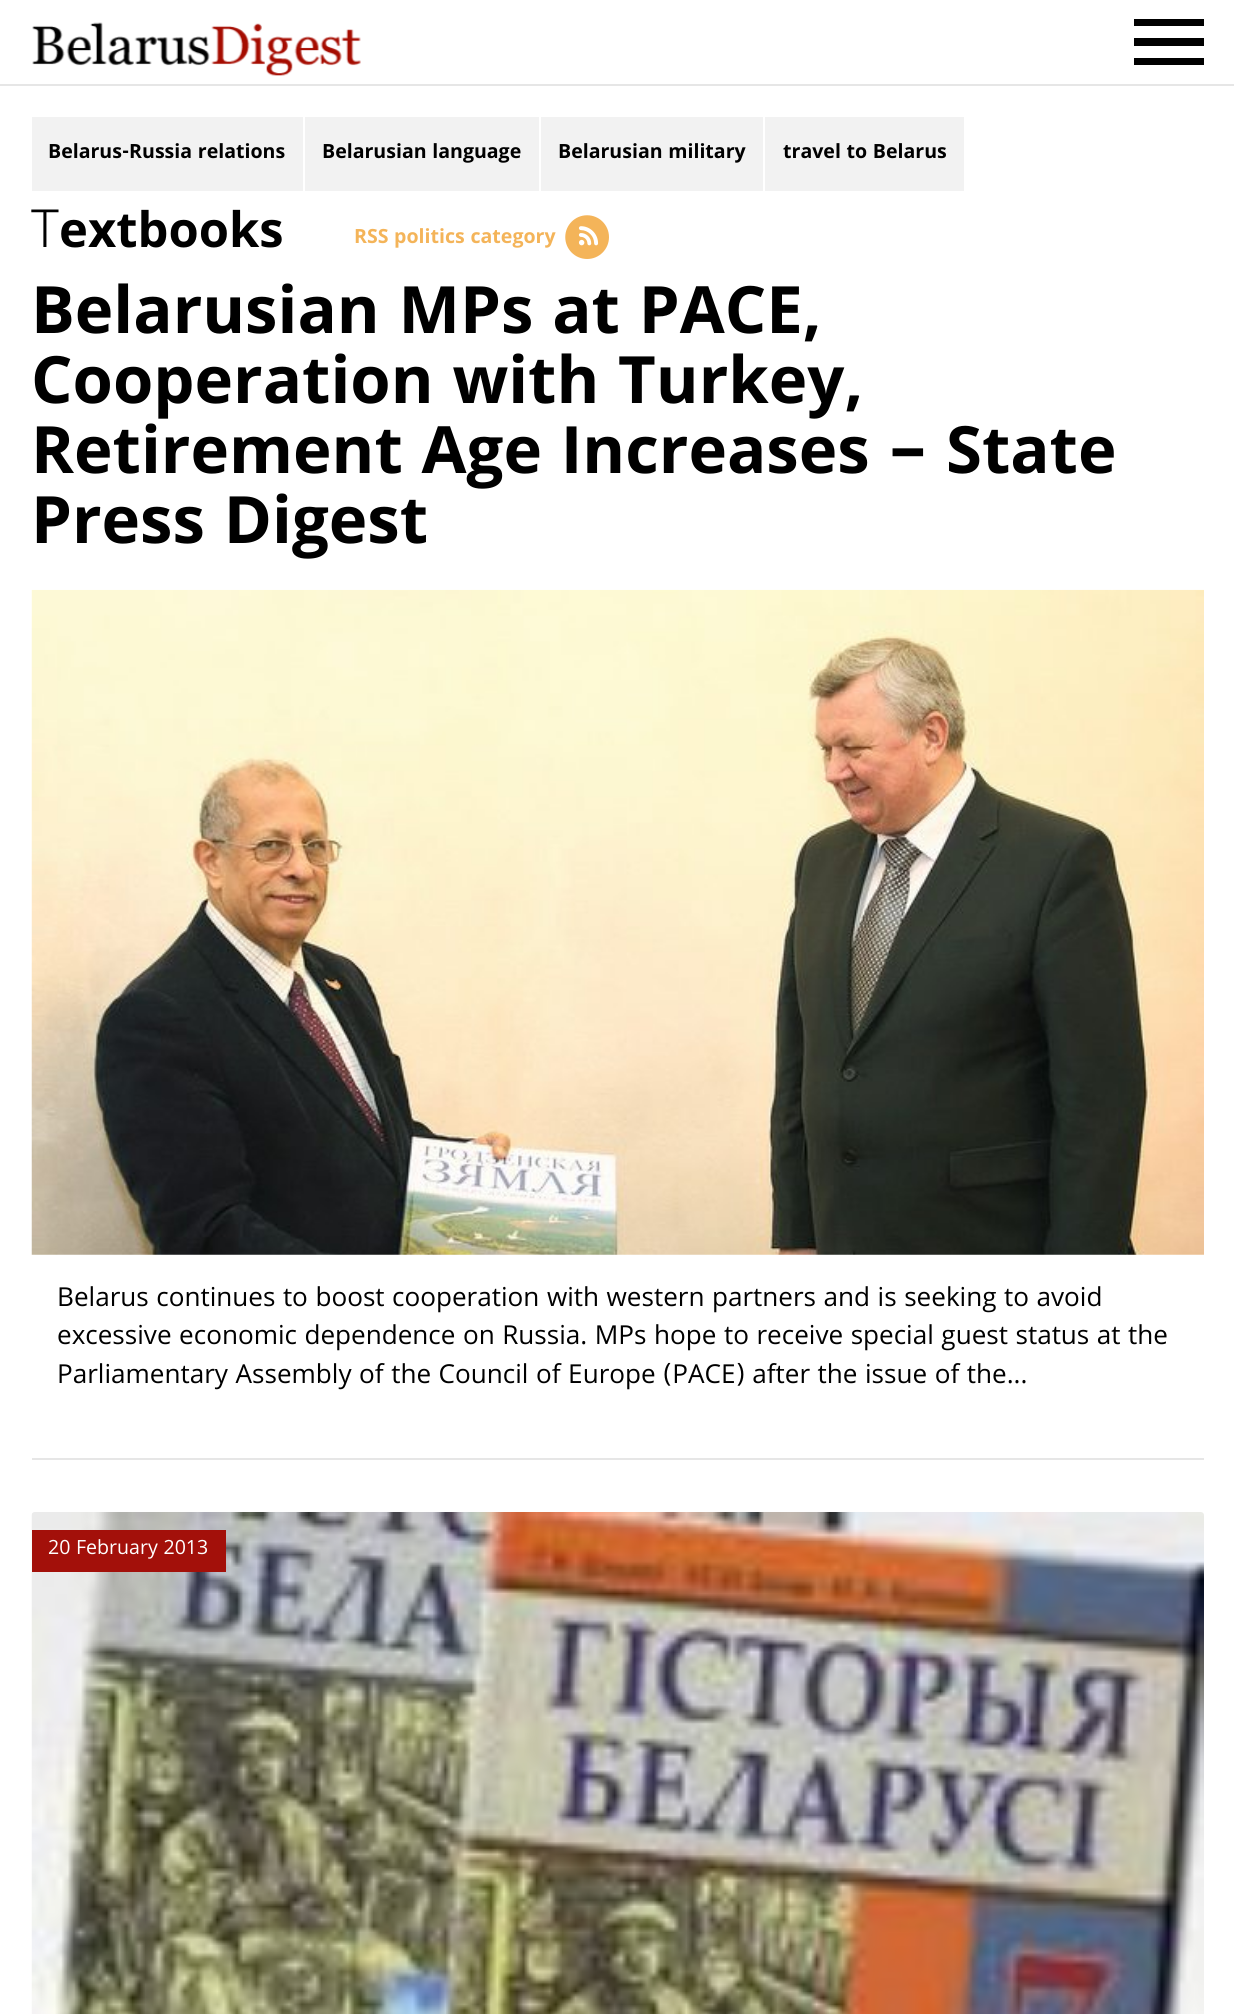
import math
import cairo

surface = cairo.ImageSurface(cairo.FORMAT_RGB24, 1234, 2014)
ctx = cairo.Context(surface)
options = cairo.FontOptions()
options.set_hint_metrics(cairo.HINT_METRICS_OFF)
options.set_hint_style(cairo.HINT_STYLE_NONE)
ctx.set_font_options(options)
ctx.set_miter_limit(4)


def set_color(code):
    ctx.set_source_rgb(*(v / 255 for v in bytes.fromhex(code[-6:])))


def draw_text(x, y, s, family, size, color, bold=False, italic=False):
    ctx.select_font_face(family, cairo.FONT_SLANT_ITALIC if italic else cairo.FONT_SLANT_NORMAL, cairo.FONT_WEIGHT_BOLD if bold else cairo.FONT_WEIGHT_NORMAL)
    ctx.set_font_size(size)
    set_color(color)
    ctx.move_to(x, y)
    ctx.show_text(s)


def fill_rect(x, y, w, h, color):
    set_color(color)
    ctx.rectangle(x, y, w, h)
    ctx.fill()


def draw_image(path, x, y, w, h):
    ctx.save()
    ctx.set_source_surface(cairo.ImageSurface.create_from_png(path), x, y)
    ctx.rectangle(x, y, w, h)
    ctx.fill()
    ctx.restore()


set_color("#ffffff")
ctx.paint()
fill_rect(0, 84, 1234, 2, "#e6e6e6")
draw_image("assets/img1.png", 32, 22, 329, 54)
set_color("#000000")
ctx.new_path()
ctx.move_to(1134, 65)
ctx.line_to(1204, 65)
ctx.line_to(1204, 58)
ctx.line_to(1134, 58)
ctx.close_path()
ctx.move_to(1134, 46)
ctx.line_to(1204, 46)
ctx.line_to(1204, 38)
ctx.line_to(1134, 38)
ctx.close_path()
ctx.move_to(1134, 19)
ctx.line_to(1134, 26)
ctx.line_to(1204, 26)
ctx.line_to(1204, 19)
ctx.close_path()
ctx.fill()
fill_rect(32, 117, 271, 74, "#f2f2f2")
draw_text(48, 158, "Belarus-Russia relations", "Khula", 21, "#000000", bold=True)
fill_rect(305, 117, 234, 74, "#f2f2f2")
draw_text(322, 158, "Belarusian language", "Khula", 21, "#000000", bold=True)
fill_rect(541, 117, 222, 74, "#f2f2f2")
draw_text(558, 158, "Belarusian military", "Khula", 21, "#000000", bold=True)
fill_rect(765, 117, 199, 74, "#f2f2f2")
draw_text(783, 158, "travel to Belarus", "Khula", 21, "#000000", bold=True)
draw_text(31, 247, "T", "Noto Sans Light", 52.5, "#000000")
draw_text(59, 247, "extbooks", "Khula", 52.5, "#000000", bold=True)
draw_text(354, 243, "RSS politics category", "Khula", 21, "#f4b459", bold=True)
draw_image("assets/img2.png", 565, 215, 44, 44)
fill_rect(32, 1458, 1172, 2, "#e6e6e6")
draw_text(31, 333, "Belarusian MPs at PACE,", "Khula", 70, "#000000", bold=True)
draw_text(31, 403, "Cooperation with Turkey,", "Khula", 70, "#000000", bold=True)
draw_text(31, 473, "Retirement Age Increases – State", "Khula", 70, "#000000", bold=True)
draw_text(31, 543, "Press Digest", "Khula", 70, "#000000", bold=True)
draw_image("assets/img3.png", 31, 589, 1173, 666)
draw_text(57, 1306, "Belarus continues to boost cooperation with western partners and is seeking to avoid", "Khula", 28, "#000000")
draw_text(57, 1344, "excessive economic dependence on Russia. MPs hope to receive special guest status at the", "Khula", 28, "#000000")
draw_text(57, 1383, "Parliamentary Assembly of the Council of Europe (PACE) after the issue of the...", "Khula", 28, "#000000")
draw_image("assets/img4.png", 31, 1512, 1173, 502)
fill_rect(32, 1530, 194, 42, "#a3100a")
draw_text(48, 1554, "20 February 2013", "Khula", 21, "#ffffff")
surface.write_to_png("output.png")
